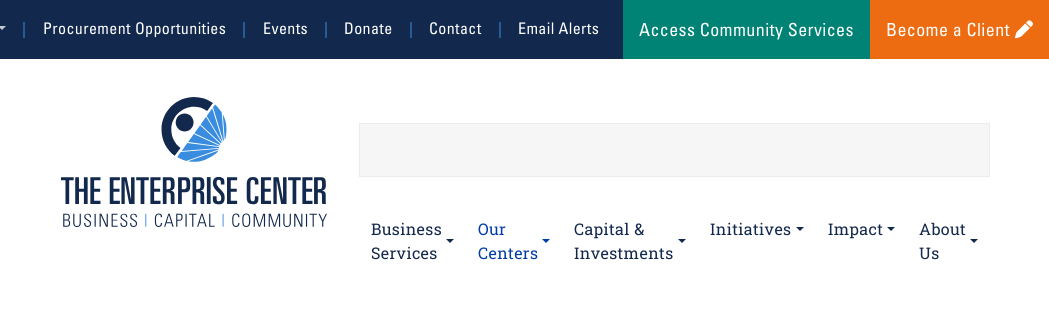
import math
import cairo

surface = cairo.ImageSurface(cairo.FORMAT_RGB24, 1049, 311)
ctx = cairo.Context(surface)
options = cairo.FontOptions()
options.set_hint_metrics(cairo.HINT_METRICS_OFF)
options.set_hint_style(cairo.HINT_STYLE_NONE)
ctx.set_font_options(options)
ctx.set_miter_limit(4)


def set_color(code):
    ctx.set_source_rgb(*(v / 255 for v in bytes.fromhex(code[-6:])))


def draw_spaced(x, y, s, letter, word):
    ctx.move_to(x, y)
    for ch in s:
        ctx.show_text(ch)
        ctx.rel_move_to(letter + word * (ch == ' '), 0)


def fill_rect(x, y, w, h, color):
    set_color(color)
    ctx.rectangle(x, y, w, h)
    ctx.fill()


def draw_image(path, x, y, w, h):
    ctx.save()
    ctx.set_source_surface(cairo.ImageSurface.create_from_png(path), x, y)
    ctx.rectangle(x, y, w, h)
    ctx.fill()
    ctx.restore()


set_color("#ffffff")
ctx.paint()
fill_rect(0, 0, 623, 59, "#12284c")
set_color("#c4c9d2")
ctx.new_path()
ctx.move_to(-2, 26)
ctx.line_to(6, 26)
ctx.line_to(2, 30)
ctx.close_path()
ctx.fill()
ctx.select_font_face("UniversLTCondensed")
ctx.set_font_size(16)
set_color("#3a8dde")
draw_spaced(22, 34, "|", 0.4, 0)
set_color("#ffffff")
draw_spaced(43, 34, "Procurement Opportunities", 0.4, 0)
set_color("#3a8dde")
draw_spaced(242, 34, "|", 0.4, 0)
set_color("#ffffff")
draw_spaced(263, 34, "Events", 0.4, 0)
set_color("#3a8dde")
draw_spaced(324, 34, "|", 0.4, 0)
set_color("#ffffff")
draw_spaced(344, 34, "Donate", 0.4, 0)
set_color("#3a8dde")
draw_spaced(409, 34, "|", 0.4, 0)
set_color("#ffffff")
draw_spaced(429, 34, "Contact", 0.4, 0)
set_color("#3a8dde")
draw_spaced(498, 34, "|", 0.4, 0)
set_color("#ffffff")
draw_spaced(518, 34, "Email Alerts", 0.4, 0)
fill_rect(623, 0, 247, 59, "#008375")
ctx.set_font_size(18)
set_color("#ffffff")
draw_spaced(639, 36, "Access Community Services", 0.4, 0)
fill_rect(870, 0, 179, 59, "#ed6c11")
set_color("#ffffff")
draw_spaced(886, 36, "Become a Client", 0.4, 0)
draw_image("assets/img1.png", 1015, 20, 18, 19)
draw_image("assets/img2.png", 61, 97, 266, 130)
set_color("#f6f6f6")
ctx.rectangle(359.5, 123.5, 630, 53)
ctx.fill_preserve()
set_color("#e9ecef")
ctx.set_line_width(1)
ctx.stroke()
ctx.select_font_face("Roboto Slab")
ctx.set_font_size(16)
set_color("#12284c")
draw_spaced(371, 235, "Business", 0.4, 0)
ctx.new_path()
ctx.move_to(446, 239)
ctx.line_to(454, 239)
ctx.line_to(450, 243)
ctx.close_path()
ctx.fill()
draw_spaced(371, 259, "Services", 0.4, 0)
set_color("#003da6")
draw_spaced(478, 235, "Our", 0.4, 0)
ctx.new_path()
ctx.move_to(542, 239)
ctx.line_to(550, 239)
ctx.line_to(546, 243)
ctx.close_path()
ctx.fill()
draw_spaced(478, 259, "Centers", 0.4, 0)
set_color("#12284c")
draw_spaced(574, 235, "Capital &", 0.4, 0)
ctx.new_path()
ctx.move_to(678, 239)
ctx.line_to(686, 239)
ctx.line_to(682, 243)
ctx.close_path()
ctx.fill()
draw_spaced(574, 259, "Investments", 0.4, 0)
draw_spaced(710, 235, "Initiatives", 0.4, 0)
ctx.new_path()
ctx.move_to(796, 227)
ctx.line_to(804, 227)
ctx.line_to(800, 231)
ctx.close_path()
ctx.fill()
draw_spaced(828, 235, "Impact", 0.4, 0)
ctx.new_path()
ctx.move_to(887, 227)
ctx.line_to(895, 227)
ctx.line_to(891, 231)
ctx.close_path()
ctx.fill()
draw_spaced(919, 235, "About", 0.4, 0)
ctx.new_path()
ctx.move_to(970, 239)
ctx.line_to(978, 239)
ctx.line_to(974, 243)
ctx.close_path()
ctx.fill()
draw_spaced(919, 259, "Us", 0.4, 0)
surface.write_to_png("output.png")
